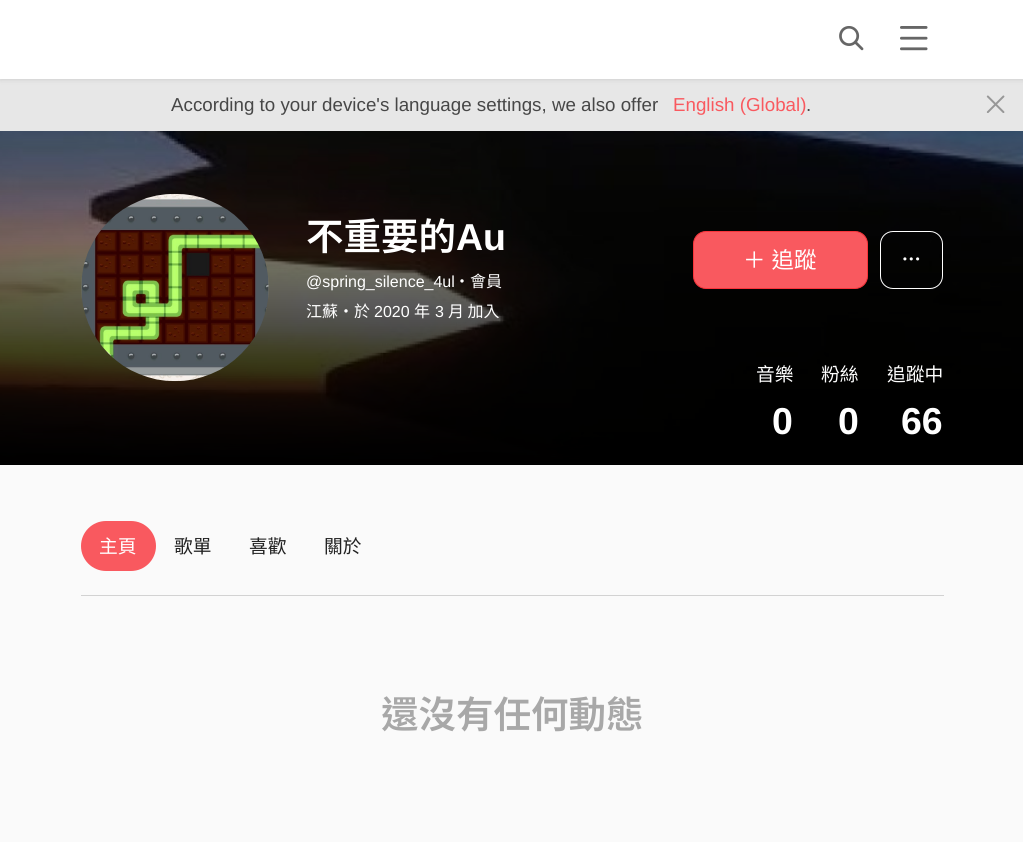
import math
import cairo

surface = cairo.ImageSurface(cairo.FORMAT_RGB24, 1023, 842)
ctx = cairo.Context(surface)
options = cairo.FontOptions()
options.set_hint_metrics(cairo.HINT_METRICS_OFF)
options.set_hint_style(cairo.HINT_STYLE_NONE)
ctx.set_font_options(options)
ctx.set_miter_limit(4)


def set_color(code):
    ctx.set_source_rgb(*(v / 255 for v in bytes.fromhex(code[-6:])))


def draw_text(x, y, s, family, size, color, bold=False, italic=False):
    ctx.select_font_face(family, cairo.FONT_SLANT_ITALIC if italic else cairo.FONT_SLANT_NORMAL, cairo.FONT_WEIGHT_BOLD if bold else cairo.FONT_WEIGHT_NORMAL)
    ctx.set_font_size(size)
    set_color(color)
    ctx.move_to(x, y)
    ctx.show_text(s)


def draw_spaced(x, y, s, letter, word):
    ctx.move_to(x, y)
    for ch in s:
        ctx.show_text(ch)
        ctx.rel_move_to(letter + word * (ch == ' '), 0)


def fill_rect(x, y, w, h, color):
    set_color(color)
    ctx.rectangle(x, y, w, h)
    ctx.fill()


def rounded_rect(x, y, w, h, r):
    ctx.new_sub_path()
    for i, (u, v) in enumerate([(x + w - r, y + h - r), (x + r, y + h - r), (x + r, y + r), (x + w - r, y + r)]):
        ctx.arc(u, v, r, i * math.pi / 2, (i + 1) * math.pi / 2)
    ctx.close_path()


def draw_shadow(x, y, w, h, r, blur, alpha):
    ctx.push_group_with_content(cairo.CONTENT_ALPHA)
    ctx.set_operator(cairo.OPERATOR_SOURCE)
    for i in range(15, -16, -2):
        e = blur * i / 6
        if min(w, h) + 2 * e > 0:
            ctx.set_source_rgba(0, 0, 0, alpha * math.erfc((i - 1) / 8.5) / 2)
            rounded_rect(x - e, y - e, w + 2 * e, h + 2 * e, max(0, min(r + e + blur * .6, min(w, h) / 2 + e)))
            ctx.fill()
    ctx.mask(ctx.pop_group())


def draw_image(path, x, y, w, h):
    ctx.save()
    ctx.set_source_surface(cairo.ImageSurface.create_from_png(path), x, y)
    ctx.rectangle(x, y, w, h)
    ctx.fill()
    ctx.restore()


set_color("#fafafa")
ctx.paint()
fill_rect(0, 79, 1023, 52, "#e7e7e7")
draw_text(171, 111, "According to your device's language settings, we also offer", "Liberation Sans", 18.75, "#474747")
draw_text(673, 111, "English (Global)", "Liberation Sans", 18.75, "#f9595f")
draw_text(806, 111, ".", "Liberation Sans", 18.75, "#474747")
draw_image("assets/img1.png", 986, 95, 19, 18)
set_color("#000000")
draw_shadow(0, 1, 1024, 79, 0, 2.5, 0.1)
fill_rect(0, 0, 1023, 79, "#ffffff")
draw_image("assets/img2.png", 839, 26, 25, 25)
draw_image("assets/img3.png", 900, 26, 28, 25)
draw_image("assets/img4.png", 0, 131, 1023, 331)
gradient = cairo.LinearGradient(512, 6.2, 512, 465)
gradient.add_color_stop_rgba(0, 0, 0, 0, 0)
gradient.add_color_stop_rgba(1, 0, 0, 0, 1)
ctx.set_source(gradient)
ctx.rectangle(0, 131, 1023, 334)
ctx.fill()
draw_image("assets/img5.png", 81, 193, 188, 189)
draw_text(306, 250, "不重要的", "Noto Sans TC SemiBold", 37.5, "#ffffff")
draw_text(456, 250, "Au", "Liberation Sans", 37.5, "#ffffff", bold=True)
draw_text(306, 287, "@spring_silence_4ul", "Liberation Sans", 16, "#ffffff")
draw_text(454, 287, "・會員", "Noto Sans TC", 16, "#ffffff")
draw_text(306, 317, "江蘇・於", "Noto Sans TC", 16, "#ffffff")
draw_text(374, 317, "2020", "Liberation Sans", 16, "#ffffff")
draw_text(414, 317, "年", "Noto Sans TC", 16, "#ffffff")
draw_text(435, 317, "3", "Liberation Sans", 16, "#ffffff")
draw_text(448, 317, "月 加入", "Noto Sans TC", 16, "#ffffff")
set_color("#f9595f")
rounded_rect(693.5, 231.5, 174, 57, 12.5)
ctx.fill_preserve()
set_color("#f8343b")
ctx.set_line_width(1)
ctx.stroke()
ctx.set_font_size(22.5)
set_color("#ffffff")
draw_spaced(743, 268, "＋ 追蹤", 0, 1)
rounded_rect(880.5, 231.5, 62, 57, 12.5)
ctx.stroke()
draw_image("assets/img6.png", 903, 257, 17, 4)
draw_text(756, 381, "音樂", "Noto Sans TC", 18.75, "#ffffff")
draw_text(772, 434, "0", "Liberation Sans", 37.5, "#ffffff", bold=True)
draw_text(821, 381, "粉絲", "Noto Sans TC", 18.75, "#ffffff")
draw_text(838, 434, "0", "Liberation Sans", 37.5, "#ffffff", bold=True)
draw_text(887, 381, "追蹤中", "Noto Sans TC", 18.75, "#ffffff")
draw_text(901, 434, "66", "Liberation Sans", 37.5, "#ffffff", bold=True)
set_color("#f9595f")
rounded_rect(81, 521, 75, 50, 25)
ctx.fill()
draw_text(99, 553, "主頁", "Noto Sans TC", 18.75, "#ffffff")
draw_text(174, 553, "歌單", "Noto Sans TC", 18.75, "#222222")
draw_text(249, 553, "喜歡", "Noto Sans TC", 18.75, "#222222")
draw_text(324, 553, "關於", "Noto Sans TC", 18.75, "#222222")
fill_rect(81, 595, 863, 1, "#d2d2d2")
draw_text(381, 728, "還沒有任何動態", "Noto Sans TC SemiBold", 37.5, "#a8a8a8")
surface.write_to_png("output.png")
